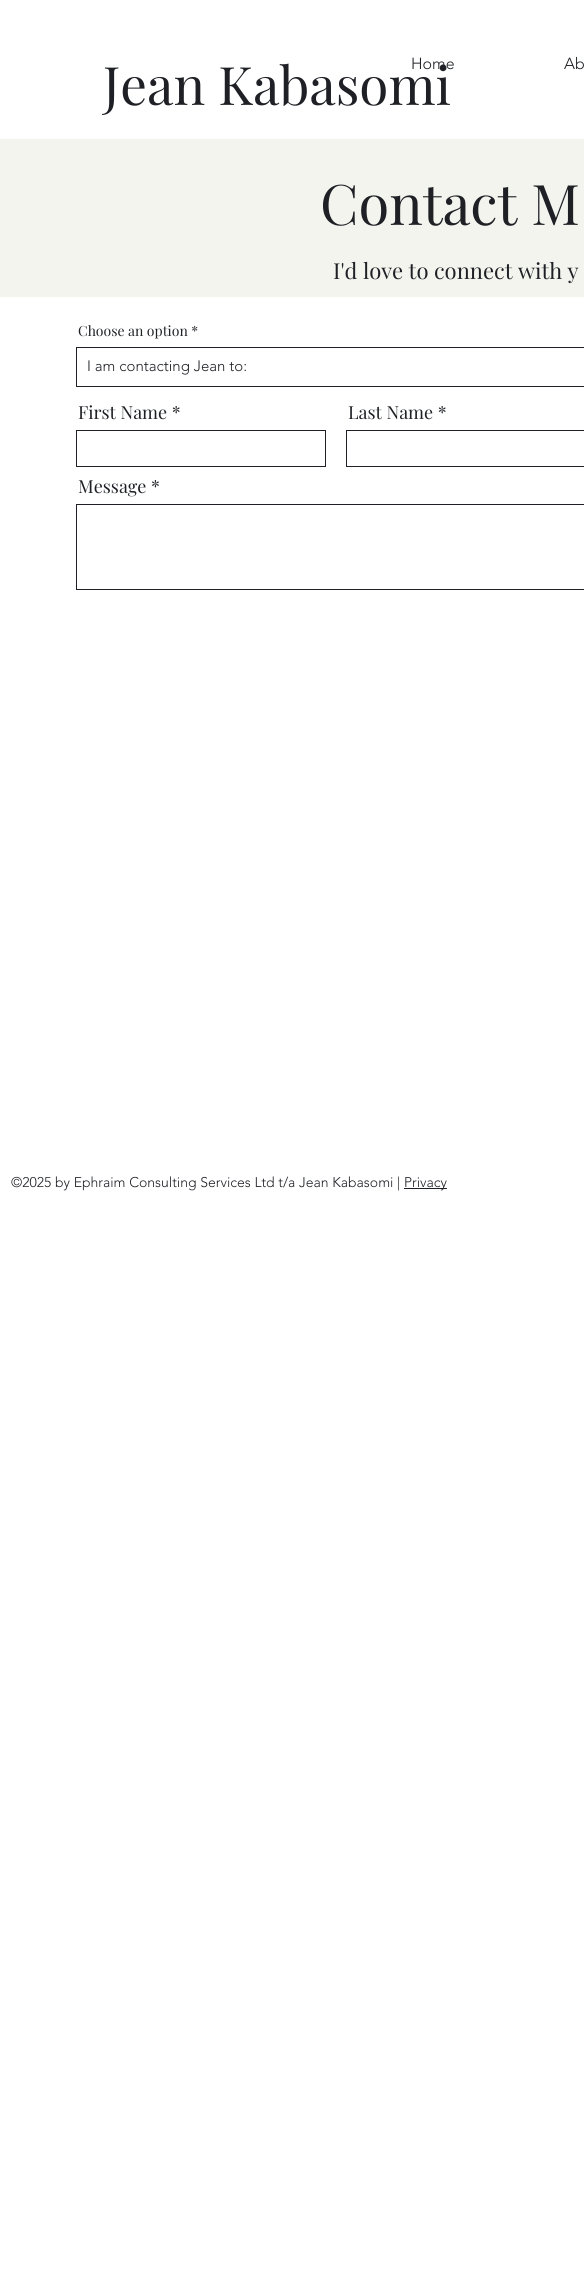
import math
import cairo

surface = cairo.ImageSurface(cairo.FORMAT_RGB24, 584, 2276)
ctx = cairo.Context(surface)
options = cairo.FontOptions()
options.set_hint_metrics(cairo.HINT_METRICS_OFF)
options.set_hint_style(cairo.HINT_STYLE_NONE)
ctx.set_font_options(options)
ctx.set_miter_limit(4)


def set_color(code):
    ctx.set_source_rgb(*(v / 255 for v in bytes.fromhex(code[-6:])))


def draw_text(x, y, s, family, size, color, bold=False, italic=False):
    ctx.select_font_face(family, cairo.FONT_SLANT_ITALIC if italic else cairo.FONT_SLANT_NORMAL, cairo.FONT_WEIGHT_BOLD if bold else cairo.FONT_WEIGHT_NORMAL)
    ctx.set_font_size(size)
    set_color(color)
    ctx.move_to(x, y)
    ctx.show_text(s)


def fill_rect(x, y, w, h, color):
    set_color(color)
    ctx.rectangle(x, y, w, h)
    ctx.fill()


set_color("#ffffff")
ctx.paint()
draw_text(103, 105, "Jean Kabasomi", "Playfair Display", 53, "#1e2025")
draw_text(411, 69, "Home", "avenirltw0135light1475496 Light", 16, "#1e2025")
draw_text(564, 69, "Ab", "avenirltw0135light1475496 Light", 16, "#1e2025")
fill_rect(0, 139, 584, 158, "#f3f4ee")
draw_text(320, 225, "Contact M", "Playfair Display", 56, "#1e2025")
draw_text(333, 279, "I'd love to connect with y", "Playfair Display", 22, "#1e2025")
draw_text(78, 336, "Choose an option *", "Playfair Display", 14, "#1e2025")
ctx.rectangle(76.5, 347.5, 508, 39)
ctx.set_line_width(1)
ctx.stroke()
draw_text(87, 371, "I am contacting Jean to:", "avenirltw0135light1475496 Light", 15, "#1e2025")
draw_text(78, 419, "First Name *", "Playfair Display", 18, "#1e2025")
ctx.rectangle(76.5, 430.5, 249, 36)
ctx.stroke()
draw_text(348, 419, "Last Name *", "Playfair Display", 18, "#1e2025")
ctx.rectangle(346.5, 430.5, 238, 36)
ctx.stroke()
draw_text(78, 493, "Message *", "Playfair Display", 18, "#1e2025")
ctx.rectangle(76.5, 504.5, 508, 85)
ctx.stroke()
draw_text(11, 1187, "©2025 by Ephraim Consulting Services Ltd t/a Jean Kabasomi |", "avenirltw0135light1475496 Light", 14, "#1e2025")
fill_rect(404, 1188, 43, 1, "#1e2025")
draw_text(404, 1187, "Privacy", "avenirltw0135light1475496 Light", 14, "#1e2025")
surface.write_to_png("output.png")
